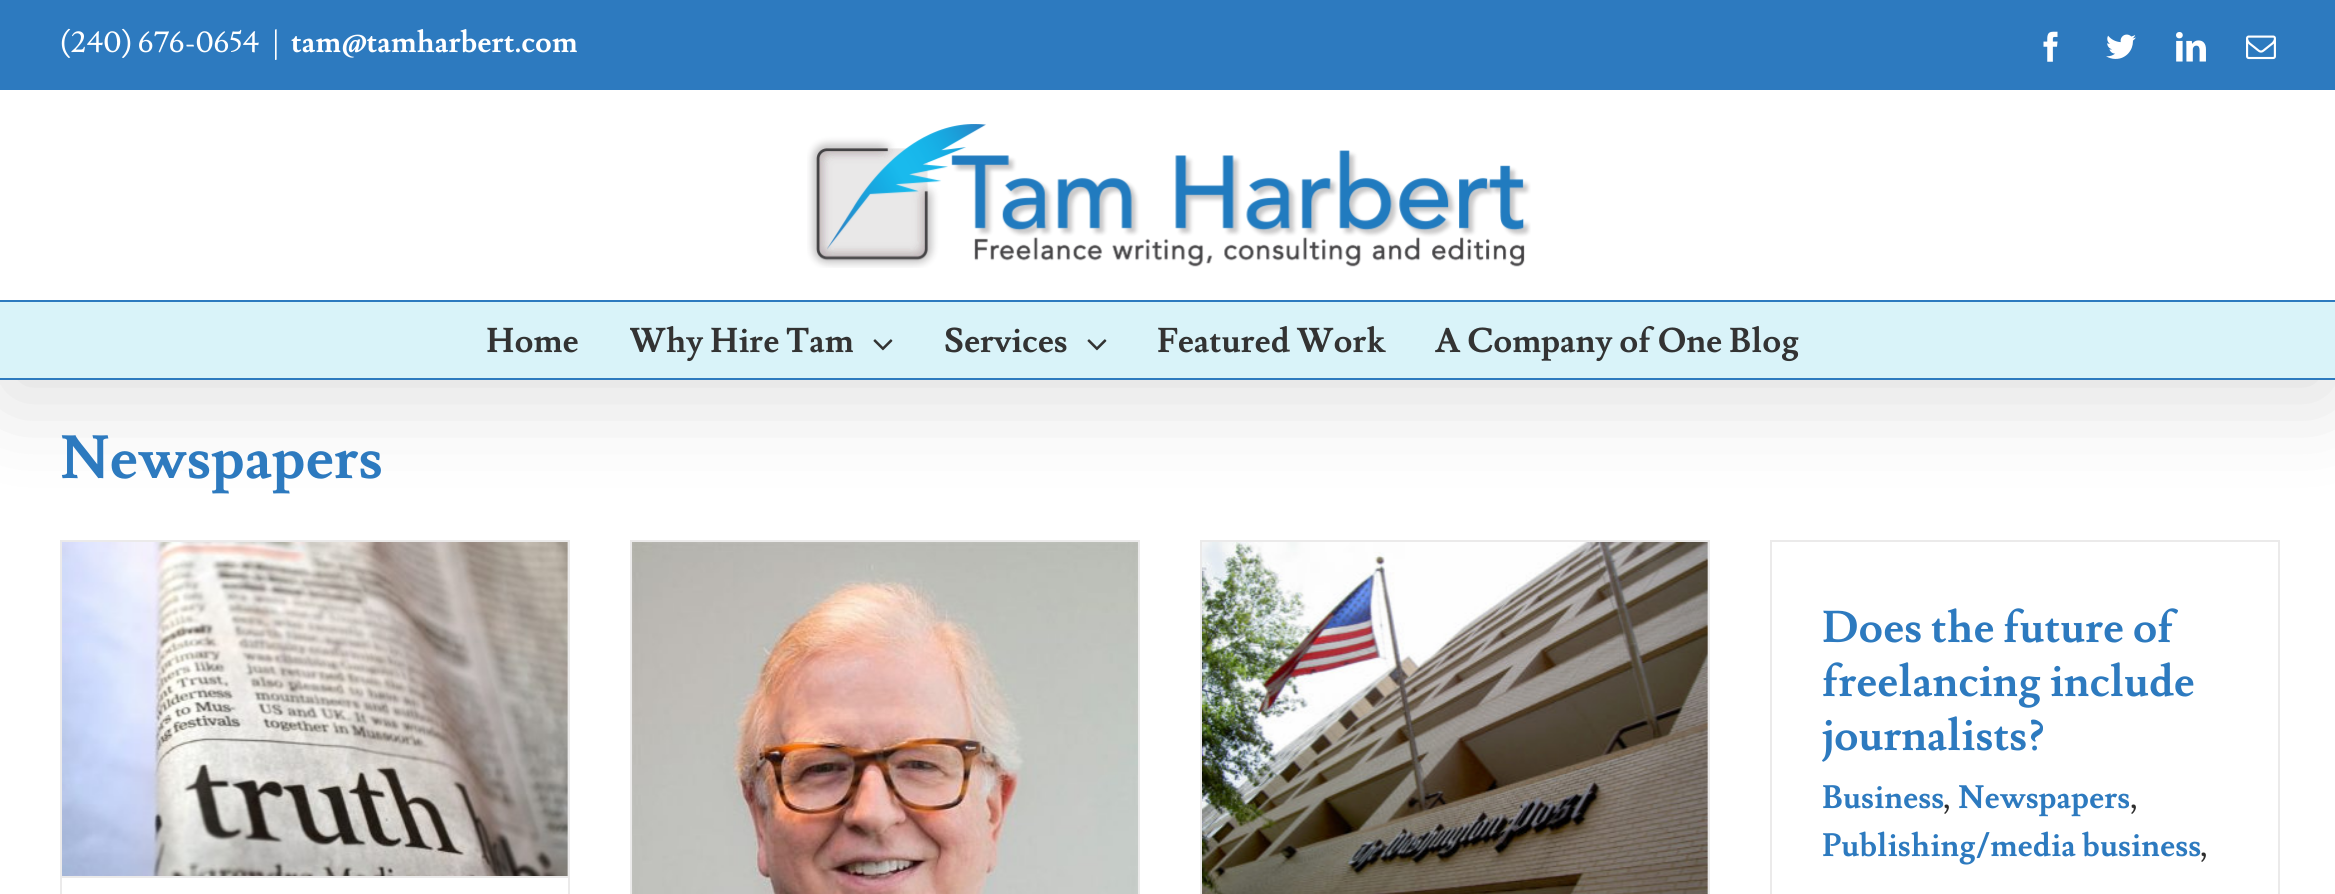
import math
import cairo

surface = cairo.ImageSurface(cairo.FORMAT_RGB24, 2335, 894)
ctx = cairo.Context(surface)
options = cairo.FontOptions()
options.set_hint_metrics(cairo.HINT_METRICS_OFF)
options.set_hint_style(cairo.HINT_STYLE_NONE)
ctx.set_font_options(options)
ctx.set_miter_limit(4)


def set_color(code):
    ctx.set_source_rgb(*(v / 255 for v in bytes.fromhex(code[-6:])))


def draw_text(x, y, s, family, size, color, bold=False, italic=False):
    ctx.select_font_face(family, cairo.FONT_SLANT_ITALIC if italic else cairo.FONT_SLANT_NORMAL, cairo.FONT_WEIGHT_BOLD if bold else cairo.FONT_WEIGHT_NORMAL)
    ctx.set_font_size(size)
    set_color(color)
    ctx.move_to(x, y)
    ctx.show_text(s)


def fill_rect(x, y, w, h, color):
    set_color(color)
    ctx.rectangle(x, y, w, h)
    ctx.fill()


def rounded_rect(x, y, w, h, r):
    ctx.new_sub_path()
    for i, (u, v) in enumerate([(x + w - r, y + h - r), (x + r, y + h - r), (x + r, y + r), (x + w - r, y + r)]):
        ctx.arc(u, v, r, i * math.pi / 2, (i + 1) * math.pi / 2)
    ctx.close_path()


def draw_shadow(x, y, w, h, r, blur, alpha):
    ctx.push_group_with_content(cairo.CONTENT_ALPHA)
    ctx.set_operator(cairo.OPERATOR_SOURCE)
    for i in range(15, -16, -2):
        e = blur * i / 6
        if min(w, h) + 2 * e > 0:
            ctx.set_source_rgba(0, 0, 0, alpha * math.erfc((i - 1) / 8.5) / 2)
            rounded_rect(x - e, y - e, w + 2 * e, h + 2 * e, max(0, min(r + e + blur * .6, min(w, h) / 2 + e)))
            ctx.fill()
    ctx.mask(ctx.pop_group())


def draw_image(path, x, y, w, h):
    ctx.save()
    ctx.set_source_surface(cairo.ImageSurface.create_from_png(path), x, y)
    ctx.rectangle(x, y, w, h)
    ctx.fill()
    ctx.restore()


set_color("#ffffff")
ctx.paint()
fill_rect(60, 540, 510, 2, "#ebeaea")
fill_rect(568, 540, 2, 354, "#ebeaea")
fill_rect(60, 540, 2, 354, "#ebeaea")
draw_image("assets/img7.png", 62, 542, 506, 334)
fill_rect(630, 540, 510, 2, "#ebeaea")
fill_rect(1138, 540, 2, 354, "#ebeaea")
fill_rect(630, 540, 2, 354, "#ebeaea")
draw_image("assets/img8.png", 632, 542, 506, 352)
fill_rect(1200, 540, 510, 2, "#ebeaea")
fill_rect(1708, 540, 2, 354, "#ebeaea")
fill_rect(1200, 540, 2, 354, "#ebeaea")
draw_image("assets/img9.png", 1202, 542, 506, 352)
fill_rect(1770, 540, 510, 2, "#ebeaea")
fill_rect(2278, 540, 2, 354, "#ebeaea")
fill_rect(1770, 540, 2, 354, "#ebeaea")
set_color("#000000")
draw_shadow(4, 24, 2328, 372, 0, 50, 0.14)
fill_rect(0, 0, 2335, 90, "#2d7abf")
draw_text(60, 52, "(240) 676-0654", "Lusitana", 30, "#ffffff")
draw_text(272, 52, "|", "Lusitana", 30, "#ffffff")
draw_text(291, 52, "tam@tamharbert.com", "Lusitana", 30, "#ffffff", bold=True)
draw_image("assets/img1.png", 2043, 31, 15, 31)
draw_image("assets/img2.png", 2106, 34, 30, 25)
draw_image("assets/img3.png", 2176, 32, 30, 30)
draw_image("assets/img4.png", 2246, 35, 30, 25)
fill_rect(0, 90, 2335, 210, "#ffffff")
fill_rect(0, 300, 2335, 2, "#2d7abf")
draw_image("assets/img5.png", 807, 124, 724, 144)
fill_rect(0, 302, 2335, 76, "#d9f3f9")
fill_rect(0, 378, 2335, 2, "#2d7abf")
draw_text(486, 352, "Home", "Lusitana", 34, "#333333", bold=True)
ctx.save()
ctx.rectangle(630, 302, 314, 76)
ctx.clip()
draw_text(629, 352, "Why Hire Tam", "Lusitana", 34, "#333333", bold=True)
ctx.restore()
draw_image("assets/img6.png", 873, 339, 20, 12)
draw_text(944, 352, "Services", "Lusitana", 34, "#333333", bold=True)
draw_image("assets/img6.png", 1087, 339, 20, 12)
draw_text(1157, 352, "Featured Work", "Lusitana", 34, "#333333", bold=True)
draw_text(1435, 352, "A Company of One Blog", "Lusitana", 34, "#333333", bold=True)
draw_text(60, 478, "Newspapers", "Lusitana", 60, "#2d7abf", bold=True)
fill_rect(62, 876, 506, 2, "#ebeaea")
draw_text(1822, 642, "Does the future of", "Lusitana", 44, "#2d7abf", bold=True)
draw_text(1822, 696, "freelancing include", "Lusitana", 44, "#2d7abf", bold=True)
draw_text(1822, 750, "journalists?", "Lusitana", 44, "#2d7abf", bold=True)
draw_text(1822, 808, "Business", "Lusitana", 32, "#2d7abf", bold=True)
draw_text(1944, 808, ",", "Lusitana", 32, "#2d2d2d")
draw_text(1958, 808, "Newspapers", "Lusitana", 32, "#2d7abf", bold=True)
draw_text(2131, 808, ",", "Lusitana", 32, "#2d2d2d")
draw_text(1822, 856, "Publishing/media business", "Lusitana", 32, "#2d7abf", bold=True)
draw_text(2201, 856, ",", "Lusitana", 32, "#2d2d2d")
surface.write_to_png("output.png")
